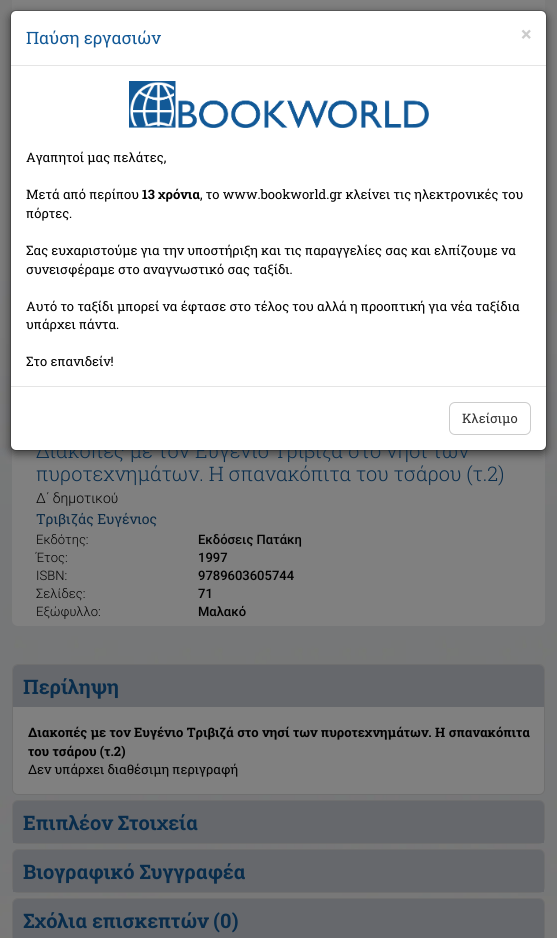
import math
import cairo

surface = cairo.ImageSurface(cairo.FORMAT_RGB24, 557, 938)
ctx = cairo.Context(surface)
options = cairo.FontOptions()
options.set_hint_metrics(cairo.HINT_METRICS_OFF)
options.set_hint_style(cairo.HINT_STYLE_NONE)
ctx.set_font_options(options)
ctx.set_miter_limit(4)


def set_color(code):
    ctx.set_source_rgb(*(v / 255 for v in bytes.fromhex(code[-6:])))


def draw_text(x, y, s, family, size, color, bold=False, italic=False):
    ctx.select_font_face(family, cairo.FONT_SLANT_ITALIC if italic else cairo.FONT_SLANT_NORMAL, cairo.FONT_WEIGHT_BOLD if bold else cairo.FONT_WEIGHT_NORMAL)
    ctx.set_font_size(size)
    set_color(color)
    ctx.move_to(x, y)
    ctx.show_text(s)


def draw_spaced(x, y, s, letter, word):
    ctx.move_to(x, y)
    for ch in s:
        ctx.show_text(ch)
        ctx.rel_move_to(letter + word * (ch == ' '), 0)


def fill_rect(x, y, w, h, color):
    set_color(color)
    ctx.rectangle(x, y, w, h)
    ctx.fill()


def rounded_rect(x, y, w, h, r):
    ctx.new_sub_path()
    for i, (u, v) in enumerate([(x + w - r, y + h - r), (x + r, y + h - r), (x + r, y + r), (x + w - r, y + r)]):
        ctx.arc(u, v, r, i * math.pi / 2, (i + 1) * math.pi / 2)
    ctx.close_path()


def draw_shadow(x, y, w, h, r, blur, alpha):
    ctx.push_group_with_content(cairo.CONTENT_ALPHA)
    ctx.set_operator(cairo.OPERATOR_SOURCE)
    for i in range(15, -16, -2):
        e = blur * i / 6
        if min(w, h) + 2 * e > 0:
            ctx.set_source_rgba(0, 0, 0, alpha * math.erfc((i - 1) / 8.5) / 2)
            rounded_rect(x - e, y - e, w + 2 * e, h + 2 * e, max(0, min(r + e + blur * .6, min(w, h) / 2 + e)))
            ctx.fill()
    ctx.mask(ctx.pop_group())


def draw_image(path, x, y, w, h):
    ctx.save()
    ctx.set_source_surface(cairo.ImageSurface.create_from_png(path), x, y)
    ctx.rectangle(x, y, w, h)
    ctx.fill()
    ctx.restore()


set_color("#7b7b7b")
ctx.paint()
draw_image("assets/img1.png", 0, 281, 557, 657)
fill_rect(12, 0, 533, 13, "#808080")
rounded_rect(12, 429, 533, 197, 6)
ctx.fill()
set_color("#000000")
draw_shadow(10, 13, 537, 441, 6, 4.5, 0.5)
set_color("#1e1e1e")
draw_shadow(75, 247, 120, 180, 0, 14, 0.9)
draw_text(36, 458, "Διακοπές με τον Ευγένιο Τριβιζά στο νησί των", "Roboto Slab Light", 20, "#092d4c")
set_color("#ffffff")
rounded_rect(11, 11, 535, 439, 5)
ctx.fill()
rounded_rect(10.5, 10.5, 536, 440, 5.5)
ctx.set_source_rgba(0, 0, 0, 0.2)
ctx.set_line_width(1)
ctx.stroke()
fill_rect(11, 65, 535, 1, "#e5e5e5")
draw_text(26, 44, "Παύση εργασιών", "Roboto Slab", 17, "#125997")
draw_text(521, 41, "×", "Roboto Slab", 20, "#cccccc", bold=True)
draw_image("assets/img2.png", 129, 81, 300, 47)
draw_text(26, 162, "Αγαπητοί μας πελάτες,", "Roboto Slab", 13, "#000000")
draw_text(26, 199, "Μετά από περίπου", "Roboto Slab", 13, "#000000")
draw_text(142, 199, "13 χρόνια", "Roboto Slab", 13, "#000000", bold=True)
draw_text(200, 199, ", το www.bookworld.gr κλείνει τις ηλεκτρονικές του", "Roboto Slab", 13, "#000000")
draw_text(26, 218, "πόρτες.", "Roboto Slab", 13, "#000000")
draw_text(26, 255, "Σας ευχαριστούμε για την υποστήριξη και τις παραγγελίες σας και ελπίζουμε να", "Roboto Slab", 13, "#000000")
draw_text(26, 274, "συνεισφέραμε στο αναγνωστικό σας ταξίδι.", "Roboto Slab", 13, "#000000")
draw_text(26, 311, "Αυτό το ταξίδι μπορεί να έφτασε στο τέλος του αλλά η προοπτική για νέα ταξίδια", "Roboto Slab", 13, "#000000")
draw_text(26, 329, "υπάρχει πάντα.", "Roboto Slab", 13, "#000000")
draw_text(26, 366, "Στο επανιδείν!", "Roboto Slab", 13, "#000000")
fill_rect(11, 386, 535, 1, "#e5e5e5")
rounded_rect(449.5, 402.5, 81, 32, 5.5)
set_color("#cccccc")
ctx.stroke()
draw_text(462, 423, "Κλείσιμο", "Roboto Slab", 13, "#333333")
draw_text(36, 481, "πυροτεχνημάτων. Η σπανακόπιτα του τσάρου (τ.2)", "Roboto Slab Light", 20, "#092d4c")
draw_text(36, 503, "Δ΄ δημοτικού", "Roboto Light", 14, "#000000")
draw_text(36, 524, "Τριβιζάς Ευγένιος", "Roboto Slab", 14, "#0b2a45")
draw_text(36, 544, "Εκδότης:", "Roboto Light", 13, "#000000")
draw_text(198, 544, "Εκδόσεις Πατάκη", "Roboto Medium", 13, "#000000")
draw_text(36, 562, "Έτος:", "Roboto Light", 13, "#000000")
draw_text(198, 562, "1997", "Roboto Medium", 13, "#000000")
draw_text(36, 580, "ISBN:", "Roboto Light", 13, "#000000")
draw_text(198, 580, "9789603605744", "Roboto Medium", 13, "#000000")
draw_text(36, 598, "Σελίδες:", "Roboto Light", 13, "#000000")
draw_text(198, 598, "71", "Roboto Medium", 13, "#000000")
draw_text(36, 616, "Εξώφυλλο:", "Roboto Light", 13, "#000000")
draw_text(198, 616, "Μαλακό", "Roboto Medium", 13, "#000000")
set_color("#808080")
rounded_rect(12.5, 664.5, 532, 130, 5.5)
ctx.fill_preserve()
set_color("#6f6f6f")
ctx.stroke()
set_color("#66686c")
ctx.new_path()
ctx.move_to(18, 665)
ctx.line_to(539, 665)
ctx.curve_to(542, 665, 544, 667, 544, 670)
ctx.line_to(544, 707)
ctx.line_to(13, 707)
ctx.line_to(13, 670)
ctx.curve_to(13, 667, 15, 665, 18, 665)
ctx.close_path()
ctx.fill()
draw_text(23, 694, "Περίληψη", "Roboto Slab", 20, "#092d4c", bold=True)
ctx.set_font_size(13)
set_color("#000000")
draw_spaced(28, 737, "Διακοπές με τον Ευγένιο Τριβιζά στο νησί των πυροτεχνημάτων. Η σπανακόπιτα", 0, 0.25)
draw_text(28, 756, "του τσάρου (τ.2)", "Roboto Slab", 13, "#000000", bold=True)
draw_text(28, 774, "Δεν υπάρχει διαθέσιμη περιγραφή", "Roboto Slab", 13, "#000000")
rounded_rect(12.5, 800.5, 532, 43, 5.5)
set_color("#6f6f6f")
ctx.stroke()
set_color("#66686c")
ctx.new_path()
ctx.move_to(18, 801)
ctx.line_to(539, 801)
ctx.curve_to(542, 801, 544, 803, 544, 806)
ctx.line_to(544, 843)
ctx.line_to(13, 843)
ctx.line_to(13, 806)
ctx.curve_to(13, 803, 15, 801, 18, 801)
ctx.close_path()
ctx.fill()
draw_text(23, 830, "Επιπλέον Στοιχεία", "Roboto Slab", 20, "#092d4c", bold=True)
rounded_rect(12.5, 849.5, 532, 43, 5.5)
set_color("#6f6f6f")
ctx.stroke()
set_color("#66686c")
ctx.new_path()
ctx.move_to(18, 850)
ctx.line_to(539, 850)
ctx.curve_to(542, 850, 544, 852, 544, 855)
ctx.line_to(544, 892)
ctx.line_to(13, 892)
ctx.line_to(13, 855)
ctx.curve_to(13, 852, 15, 850, 18, 850)
ctx.close_path()
ctx.fill()
draw_text(23, 879, "Βιογραφικό Συγγραφέα", "Roboto Slab", 20, "#092d4c", bold=True)
rounded_rect(12.5, 898.5, 532, 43, 5.5)
set_color("#6f6f6f")
ctx.stroke()
set_color("#66686c")
ctx.new_path()
ctx.move_to(18, 899)
ctx.line_to(539, 899)
ctx.curve_to(542, 899, 544, 901, 544, 904)
ctx.line_to(544, 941)
ctx.line_to(13, 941)
ctx.line_to(13, 904)
ctx.curve_to(13, 901, 15, 899, 18, 899)
ctx.close_path()
ctx.fill()
draw_text(23, 928, "Σχόλια επισκεπτών (0)", "Roboto Slab", 20, "#092d4c", bold=True)
surface.write_to_png("output.png")
